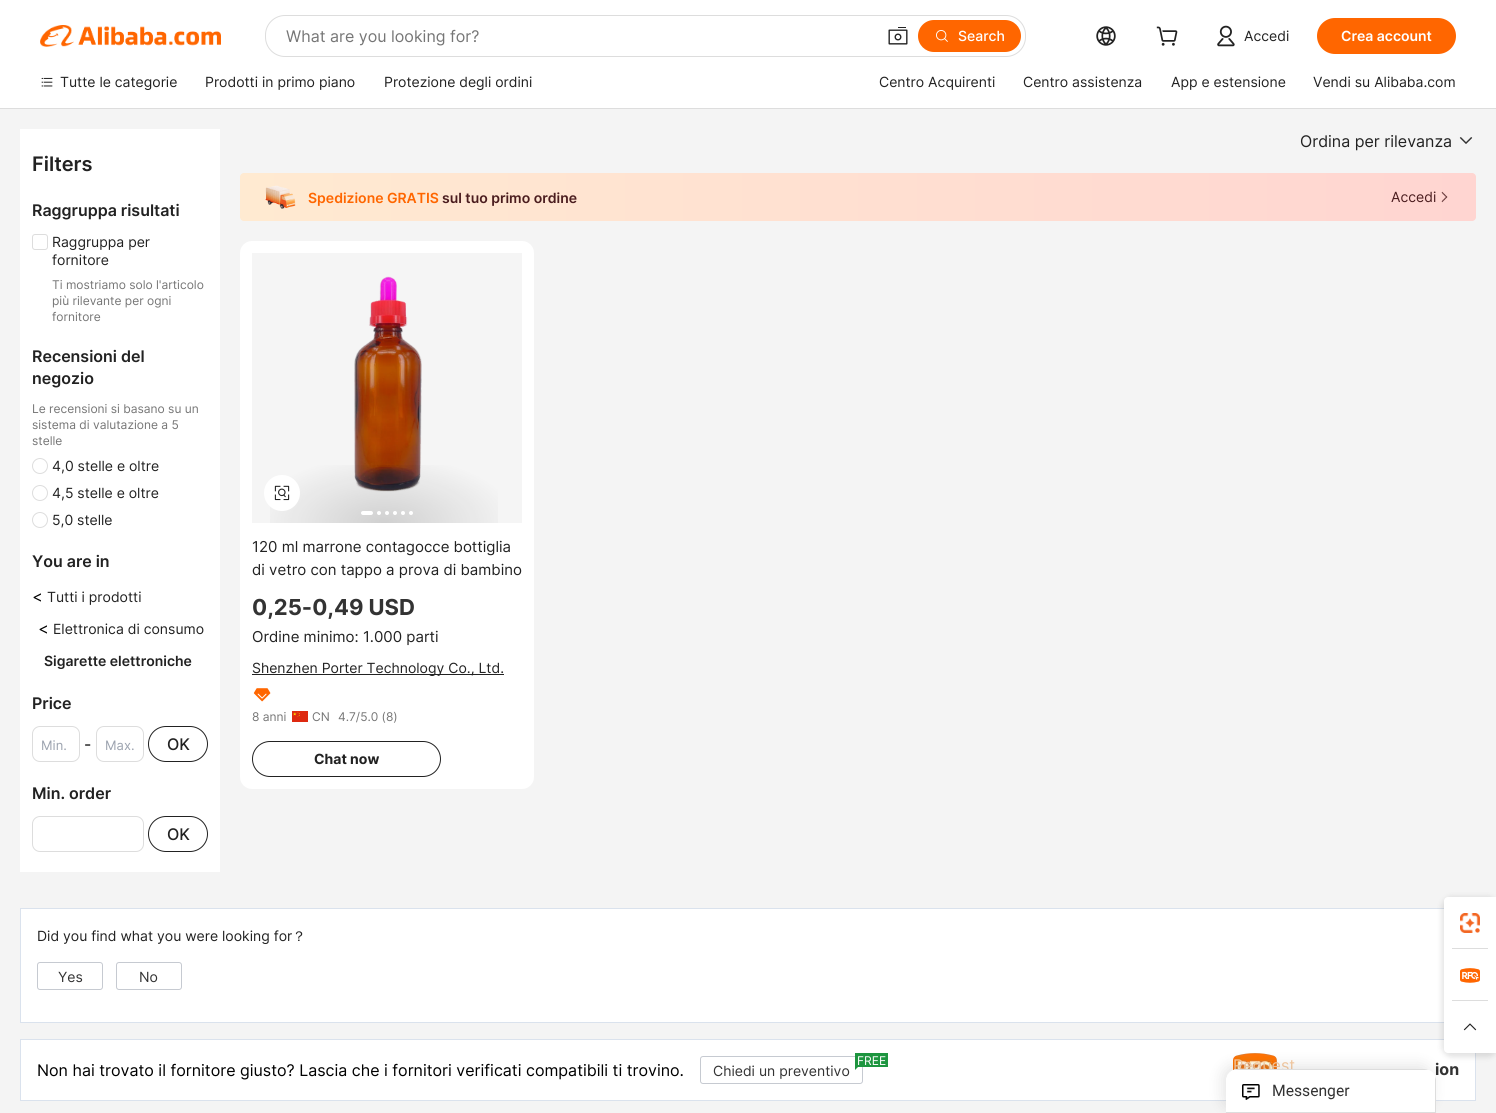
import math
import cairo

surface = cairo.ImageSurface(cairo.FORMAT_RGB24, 1496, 1113)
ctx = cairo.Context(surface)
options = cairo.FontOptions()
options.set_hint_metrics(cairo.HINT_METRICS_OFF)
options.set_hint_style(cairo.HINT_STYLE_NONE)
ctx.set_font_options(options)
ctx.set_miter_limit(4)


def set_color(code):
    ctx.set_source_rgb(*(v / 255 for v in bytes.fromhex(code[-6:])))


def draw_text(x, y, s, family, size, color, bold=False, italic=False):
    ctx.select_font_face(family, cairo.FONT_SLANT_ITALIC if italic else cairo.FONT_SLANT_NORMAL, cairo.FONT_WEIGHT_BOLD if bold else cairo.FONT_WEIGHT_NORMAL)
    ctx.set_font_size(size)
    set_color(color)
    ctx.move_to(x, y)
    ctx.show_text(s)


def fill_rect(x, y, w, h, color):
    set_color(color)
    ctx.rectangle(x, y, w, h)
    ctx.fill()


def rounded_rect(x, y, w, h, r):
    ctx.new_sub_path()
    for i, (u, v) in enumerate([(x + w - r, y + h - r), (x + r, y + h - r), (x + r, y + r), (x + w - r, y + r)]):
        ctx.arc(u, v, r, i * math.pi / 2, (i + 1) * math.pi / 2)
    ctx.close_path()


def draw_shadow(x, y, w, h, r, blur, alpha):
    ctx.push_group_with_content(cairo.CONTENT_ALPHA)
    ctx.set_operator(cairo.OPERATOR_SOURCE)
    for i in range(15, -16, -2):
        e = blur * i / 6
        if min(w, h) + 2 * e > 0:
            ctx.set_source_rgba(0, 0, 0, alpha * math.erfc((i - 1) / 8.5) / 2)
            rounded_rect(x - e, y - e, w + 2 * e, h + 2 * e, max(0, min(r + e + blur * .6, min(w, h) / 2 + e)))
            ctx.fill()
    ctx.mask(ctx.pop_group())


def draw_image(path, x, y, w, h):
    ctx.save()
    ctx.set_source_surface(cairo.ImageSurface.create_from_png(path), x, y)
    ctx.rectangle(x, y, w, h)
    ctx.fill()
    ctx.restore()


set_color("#f4f4f4")
ctx.paint()
fill_rect(0, 0, 1496, 108, "#ffffff")
fill_rect(0, 108, 1496, 1, "#dddddd")
draw_image("assets/img1.png", 40, 25, 181, 22)
rounded_rect(265, 15, 761, 42, 20)
ctx.fill()
set_color("#ffffff")
rounded_rect(266, 16, 759, 40, 19)
ctx.fill()
draw_text(286, 42, "What are you looking for?", "Inter", 16, "#767676")
draw_image("assets/img2.png", 888, 27, 20, 18)
set_color("#ff6600")
rounded_rect(918, 20, 103, 32, 16)
ctx.fill()
draw_image("assets/img3.png", 936, 30, 12, 12)
draw_text(958, 41, "Search", "Inter Medium", 14, "#ffffff")
draw_image("assets/img4.png", 1096, 26, 20, 20)
draw_image("assets/img5.png", 1156, 26, 22, 20)
draw_image("assets/img6.png", 1217, 25, 18, 22)
draw_text(1244, 41, "Accedi", "Inter", 14, "#222222")
set_color("#ff6600")
rounded_rect(1317, 18, 139, 36, 18)
ctx.fill()
draw_text(1341, 41, "Crea account", "Inter SemiBold", 14, "#ffffff")
draw_image("assets/img7.png", 41, 77, 12, 10)
draw_text(60, 87, "Tutte le categorie", "Inter", 14, "#222222")
draw_text(205, 87, "Prodotti in primo piano", "Inter", 14, "#222222")
draw_text(384, 87, "Protezione degli ordini", "Inter", 14, "#222222")
draw_text(879, 87, "Centro Acquirenti", "Inter", 14, "#222222")
draw_text(1023, 87, "Centro assistenza", "Inter", 14, "#222222")
draw_text(1171, 87, "App e estensione", "Inter", 14, "#222222")
draw_text(1313, 87, "Vendi su Alibaba.com", "Inter", 14, "#222222")
fill_rect(20, 129, 200, 743, "#ffffff")
draw_text(32, 171, "Filters", "Inter SemiBold", 20, "#222222")
draw_text(32, 216, "Raggruppa risultati", "Inter SemiBold", 16, "#222222")
rounded_rect(32.5, 234.5, 15, 15, 2.5)
set_color("#dddddd")
ctx.set_line_width(1)
ctx.stroke()
draw_text(52, 247, "Raggruppa per", "Inter", 14, "#222222")
draw_text(52, 265, "fornitore", "Inter", 14, "#222222")
draw_text(52, 289, "Ti mostriamo solo l'articolo", "Inter", 12, "#767676")
draw_text(52, 305, "più rilevante per ogni", "Inter", 12, "#767676")
draw_text(52, 321, "fornitore", "Inter", 12, "#767676")
draw_text(32, 362, "Recensioni del", "Inter SemiBold", 16, "#222222")
draw_text(32, 384, "negozio", "Inter SemiBold", 16, "#222222")
draw_text(32, 413, "Le recensioni si basano su un", "Inter", 12, "#767676")
draw_text(32, 429, "sistema di valutazione a 5", "Inter", 12, "#767676")
draw_text(32, 445, "stelle", "Inter", 12, "#767676")
ctx.new_path()
ctx.arc(40, 466, 7.5, 0, 2 * math.pi)
set_color("#dddddd")
ctx.stroke()
draw_text(52, 471, "4,0 stelle e oltre", "Inter", 14, "#222222")
ctx.new_path()
ctx.arc(40, 493, 7.5, 0, 2 * math.pi)
set_color("#dddddd")
ctx.stroke()
draw_text(52, 498, "4,5 stelle e oltre", "Inter", 14, "#222222")
ctx.new_path()
ctx.arc(40, 520, 7.5, 0, 2 * math.pi)
set_color("#dddddd")
ctx.stroke()
draw_text(52, 525, "5,0 stelle", "Inter", 14, "#222222")
draw_text(32, 567, "You are in", "Inter SemiBold", 16, "#222222")
draw_text(32, 602, "<", "Inter", 16, "#000000")
draw_text(47, 602, "Tutti i prodotti", "Inter", 14, "#222222")
draw_text(38, 634, "<", "Inter", 16, "#000000")
draw_text(53, 634, "Elettronica di consumo", "Inter", 14, "#222222")
draw_text(44, 666, "Sigarette elettroniche", "Inter SemiBold", 14, "#222222")
draw_text(32, 709, "Price", "Inter SemiBold", 16, "#222222")
rounded_rect(32.5, 726.5, 47, 35, 7.5)
set_color("#dddddd")
ctx.stroke()
draw_text(41, 750, "Min.", "Inter", 13, "#9ca3af")
draw_text(84, 750, "-", "Inter", 16, "#000000")
rounded_rect(96.5, 726.5, 47, 35, 7.5)
set_color("#dddddd")
ctx.stroke()
draw_text(105, 750, "Max.", "Inter", 13, "#9ca3af")
rounded_rect(148.5, 726.5, 59, 35, 17.5)
set_color("#222222")
ctx.stroke()
draw_text(167, 750, "OK", "Inter Medium", 16, "#222222")
draw_text(32, 799, "Min. order", "Inter SemiBold", 16, "#222222")
rounded_rect(32.5, 816.5, 111, 35, 7.5)
set_color("#dddddd")
ctx.stroke()
rounded_rect(148.5, 816.5, 59, 35, 17.5)
set_color("#222222")
ctx.stroke()
draw_text(167, 840, "OK", "Inter Medium", 16, "#222222")
draw_text(1300, 147, "Ordina per rilevanza", "Inter", 16, "#222222")
draw_image("assets/img8.png", 1459, 137, 14, 7)
gradient = cairo.LinearGradient(240, 197, 1476, 197)
gradient.add_color_stop_rgba(0, 1, 0.918, 0.82, 1)
gradient.add_color_stop_rgba(1, 1, 0.835, 0.82, 1)
ctx.set_source(gradient)
rounded_rect(240, 173, 1236, 48, 4)
ctx.fill()
draw_image("assets/img9.png", 265, 185, 31, 24)
draw_text(308, 203, "Spedizione GRATIS", "Inter SemiBold", 14, "#ff6600")
draw_text(442, 203, "sul tuo primo ordine", "Inter SemiBold", 14, "#4b1d1f")
draw_text(1391, 202, "Accedi", "Inter", 14, "#4b1d1f")
draw_image("assets/img10.png", 1441, 191, 7, 12)
set_color("#ffffff")
rounded_rect(240, 241, 294, 548, 12)
ctx.fill()
draw_image("assets/img12.png", 354, 276, 68, 216)
ctx.set_source_rgba(0, 0, 0, 0.04)
ctx.rectangle(252, 253, 270, 270)
ctx.fill()
draw_image("assets/img11.png", 270, 465, 228, 58)
set_color("#ffffff")
rounded_rect(361, 511, 12, 4, 2)
ctx.fill()
ctx.arc(379, 513, 2, 0, 2 * math.pi)
ctx.fill()
ctx.arc(387, 513, 2, 0, 2 * math.pi)
ctx.fill()
ctx.arc(395, 513, 2, 0, 2 * math.pi)
ctx.fill()
ctx.arc(403, 513, 2, 0, 2 * math.pi)
ctx.fill()
ctx.arc(411, 513, 2, 0, 2 * math.pi)
ctx.fill()
ctx.arc(282, 493, 18, 0, 2 * math.pi)
ctx.fill()
draw_image("assets/img13.png", 274, 485, 16, 16)
draw_text(252, 552, "120 ml marrone contagocce bottiglia", "Inter", 15, "#222222")
draw_text(252, 575, "di vetro con tappo a prova di bambino", "Inter", 15, "#222222")
draw_text(252, 615, "0,25-0,49 USD", "Inter", 22, "#333333", bold=True)
draw_text(252, 642, "Ordine minimo: 1.000 parti", "Inter", 15, "#222222")
fill_rect(252, 674, 252, 1, "#222222")
draw_text(252, 673, "Shenzhen Porter Technology Co., Ltd.", "Inter", 14, "#222222")
draw_image("assets/img14.png", 253, 688, 18, 14)
draw_text(252, 721, "8 anni", "Inter", 12, "#767676")
draw_image("assets/img15.png", 292, 711, 16, 11)
draw_text(312, 721, "CN", "Inter", 12, "#767676")
draw_text(338, 721, "4.7/5.0 (8)", "Inter", 12, "#767676")
rounded_rect(252.5, 741.5, 188, 35, 17.5)
set_color("#222222")
ctx.stroke()
draw_text(314, 764, "Chat now", "Inter", 14, "#222222", bold=True)
fill_rect(21, 909, 1423, 113, "#ffffff")
ctx.rectangle(20.5, 908.5, 1455, 114)
set_color("#dae2ed")
ctx.stroke()
set_color("#ffffff")
ctx.rectangle(20.5, 1039.5, 1455, 61)
ctx.fill_preserve()
set_color("#dae2ed")
ctx.stroke()
set_color("#000000")
draw_shadow(1442, 897, 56, 160, 10, 3, 0.12)
set_color("#ffffff")
ctx.new_path()
ctx.move_to(1452, 897)
ctx.line_to(1496, 897)
ctx.line_to(1496, 1053)
ctx.line_to(1452, 1053)
ctx.curve_to(1447.5, 1053, 1444, 1049.5, 1444, 1045)
ctx.line_to(1444, 905)
ctx.curve_to(1444, 900.5, 1447.5, 897, 1452, 897)
ctx.close_path()
ctx.fill()
rounded_rect(1444, 897, 52, 52, 4)
ctx.fill()
draw_image("assets/img16.png", 1460, 913, 20, 20)
fill_rect(1452, 948, 36, 1, "#dddddd")
draw_image("assets/img17.png", 1460, 968, 20, 15)
fill_rect(1452, 1000, 36, 1, "#dddddd")
set_color("#ffffff")
rounded_rect(1444, 1001, 52, 52, 4)
ctx.fill()
draw_image("assets/img18.png", 1463, 1023, 14, 8)
draw_text(37, 941, "Did you find what you were looking for", "Inter", 14, "#222222")
draw_text(292, 941, "？", "WenQuanYi Zen Hei Medium", 14, "#222222")
rounded_rect(37.5, 962.5, 65, 27, 2.5)
set_color("#c6cad1")
ctx.stroke()
draw_text(58, 982, "Yes", "Inter", 14, "#333333")
rounded_rect(116.5, 962.5, 65, 27, 2.5)
set_color("#c6cad1")
ctx.stroke()
draw_text(139, 982, "No", "Inter", 14, "#333333")
draw_text(37, 1076, "Non hai trovato il fornitore giusto? Lascia che i fornitori verificati compatibili ti trovino.", "Inter", 16, "#000000")
rounded_rect(700.5, 1056.5, 162, 27, 2.5)
set_color("#c6cad1")
ctx.stroke()
fill_rect(855, 1053, 33, 14, "#1d953f")
draw_text(857, 1065, "FREE", "Inter", 12, "#ffffff")
set_color("#1d953f")
ctx.new_path()
ctx.move_to(855, 1070)
ctx.line_to(855, 1062)
ctx.line_to(859, 1066)
ctx.close_path()
ctx.fill()
draw_text(713, 1076, "Chiedi un preventivo", "Inter", 14, "#333333")
draw_image("assets/img19.png", 1233, 1053, 44, 17)
draw_text(1233, 1071, "Request", "Inter", 16, "#f8cca3")
draw_text(1435, 1075, "ion", "Inter", 16, "#333333", bold=True)
set_color("#000000")
draw_shadow(1222, 1065, 210, 44, 12, 7, 0.1)
draw_image("assets/img20.png", 1226, 1069, 210, 44)
surface.write_to_png("output.png")
